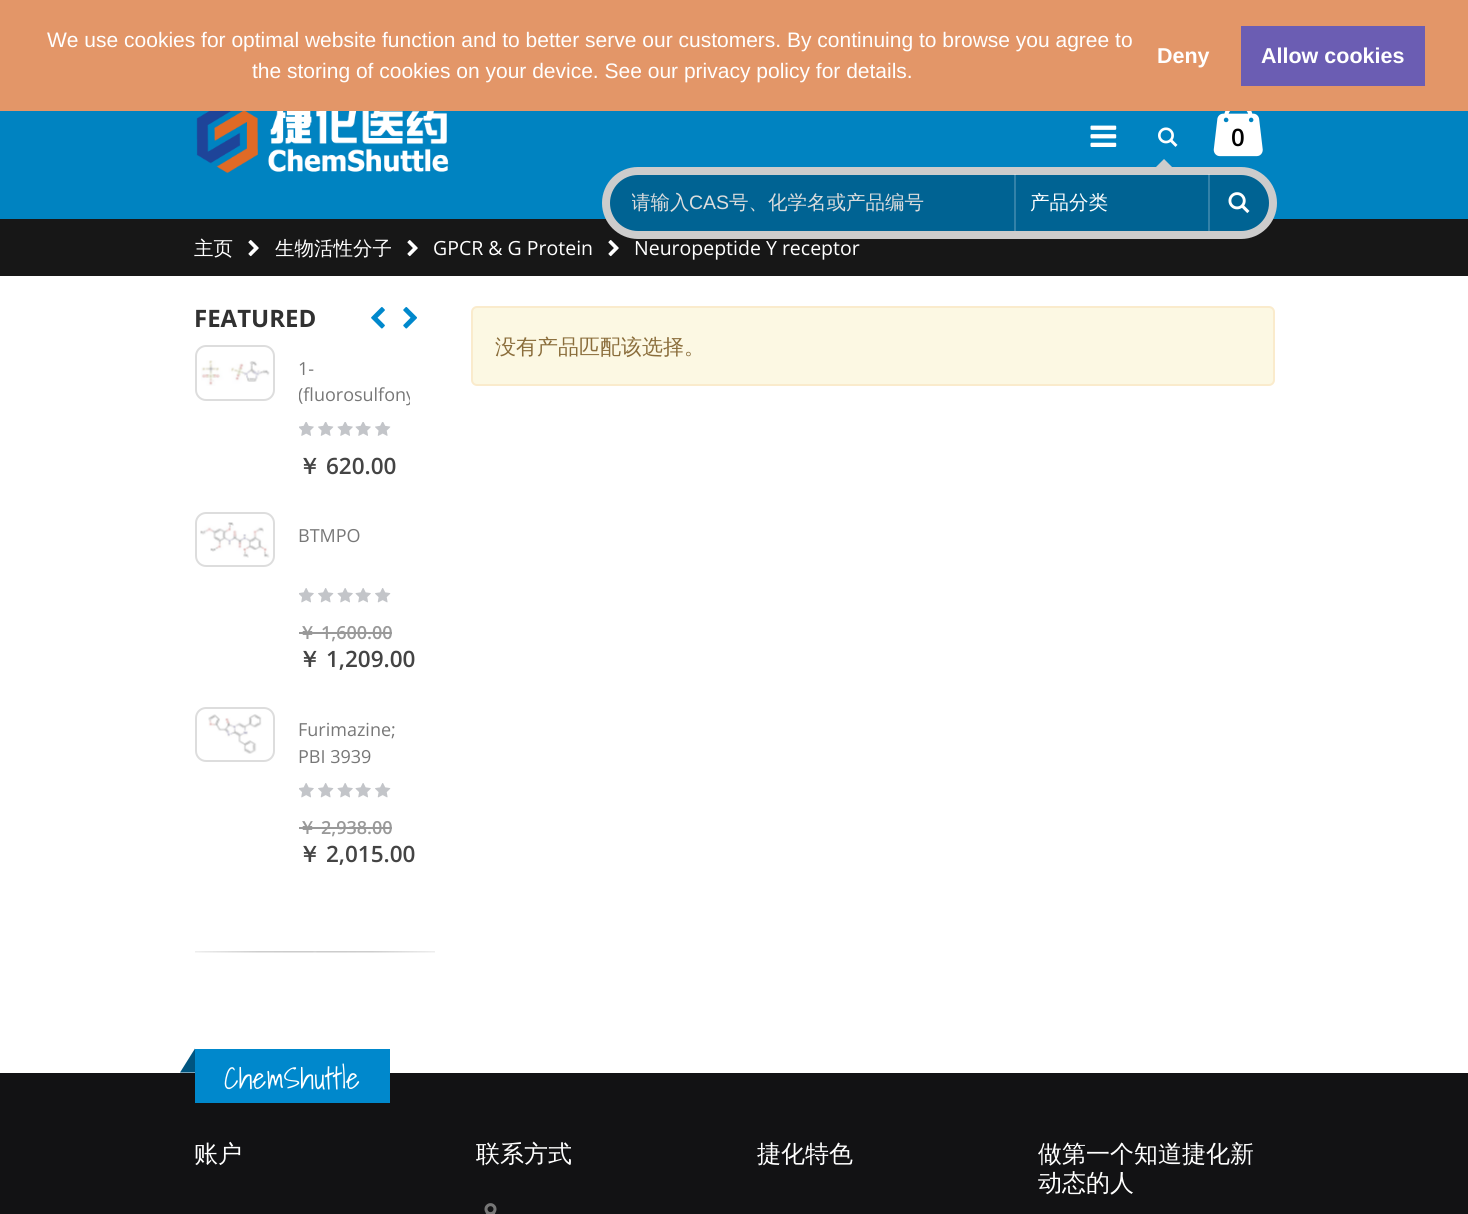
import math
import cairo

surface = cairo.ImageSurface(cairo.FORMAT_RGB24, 1468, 1214)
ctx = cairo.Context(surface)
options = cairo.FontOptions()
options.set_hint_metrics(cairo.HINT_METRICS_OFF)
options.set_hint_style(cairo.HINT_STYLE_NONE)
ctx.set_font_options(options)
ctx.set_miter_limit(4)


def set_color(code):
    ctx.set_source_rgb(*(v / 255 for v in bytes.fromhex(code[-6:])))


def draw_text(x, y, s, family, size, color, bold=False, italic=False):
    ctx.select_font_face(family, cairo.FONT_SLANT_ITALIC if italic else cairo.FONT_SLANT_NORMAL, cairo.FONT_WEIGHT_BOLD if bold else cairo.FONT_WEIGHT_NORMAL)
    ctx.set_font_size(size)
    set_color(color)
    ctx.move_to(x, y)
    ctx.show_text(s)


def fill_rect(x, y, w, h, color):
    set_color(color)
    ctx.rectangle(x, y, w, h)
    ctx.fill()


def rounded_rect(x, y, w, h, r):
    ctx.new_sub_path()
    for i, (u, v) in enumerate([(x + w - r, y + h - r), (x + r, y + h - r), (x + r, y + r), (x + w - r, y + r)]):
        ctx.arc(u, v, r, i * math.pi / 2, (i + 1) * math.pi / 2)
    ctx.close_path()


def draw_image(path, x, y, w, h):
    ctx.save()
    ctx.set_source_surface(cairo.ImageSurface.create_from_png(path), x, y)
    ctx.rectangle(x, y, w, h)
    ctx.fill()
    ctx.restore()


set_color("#ffffff")
ctx.paint()
fill_rect(0, 0, 1468, 111, "#e39668")
draw_text(47, 47, "We use cookies for optimal website function and to better serve our customers. By continuing to browse you agree to", "Liberation Sans", 21, "#ffffff")
draw_text(252, 78, "the storing of cookies on your device. See our privacy policy for details.", "Liberation Sans", 21, "#ffffff")
draw_text(1157, 63, "Deny", "Liberation Sans", 21.5, "#ffffff", bold=True)
fill_rect(1241, 26, 184, 60, "#6b5db3")
draw_text(1261, 63, "Allow cookies", "Liberation Sans", 21.5, "#ffffff", bold=True)
fill_rect(0, 111, 1468, 108, "#0083c1")
draw_image("assets/img1.png", 196, 111, 253, 63)
draw_image("assets/img2.png", 1090, 125, 27, 22)
draw_image("assets/img3.png", 1213, 111, 50, 46)
draw_text(1231, 146, "0", "Open Sans SemiBold", 24, "#000000")
draw_image("assets/img4.png", 1158, 127, 20, 20)
fill_rect(0, 219, 1468, 57, "#171717")
set_color("#006393")
rounded_rect(606, 171, 667, 64, 32)
ctx.fill_preserve()
set_color("#cccccc")
ctx.set_line_width(8)
ctx.stroke()
ctx.new_path()
ctx.move_to(1179, 174)
ctx.line_to(1149, 174)
ctx.line_to(1164, 159)
ctx.close_path()
ctx.fill()
ctx.save()
ctx.rectangle(632, 189, 360, 27)
ctx.clip()
draw_text(631, 209, "请输入", "WenQuanYi Zen Hei Medium", 19.5, "#dddddd")
ctx.restore()
draw_text(689, 209, "CAS", "Liberation Sans", 19.5, "#dddddd")
draw_text(729, 209, "号、化学名或产品编号", "WenQuanYi Zen Hei Medium", 19.5, "#dddddd")
ctx.set_source_rgba(1, 1, 1, 0.2)
ctx.rectangle(1208, 174, 2, 57)
ctx.fill()
ctx.rectangle(1014, 174, 2, 57)
ctx.fill()
draw_text(1030, 209, "产品分类", "WenQuanYi Zen Hei Medium", 19.5, "#ffffff")
draw_image("assets/img5.png", 1228, 192, 22, 22)
draw_text(194, 255, "主页", "WenQuanYi Zen Hei Medium", 19.5, "#ffffff")
draw_image("assets/img6.png", 248, 240, 11, 17)
draw_text(275, 255, "生物活性分子", "WenQuanYi Zen Hei Medium", 19.5, "#ffffff")
draw_image("assets/img6.png", 407, 240, 11, 17)
draw_text(433, 255, "GPCR & G Protein", "Open Sans", 19.5, "#ffffff")
draw_image("assets/img6.png", 608, 240, 11, 17)
draw_text(634, 255, "Neuropeptide Y receptor", "Open Sans", 19.5, "#ffffff")
draw_text(194, 327, "FEATURED", "Open Sans", 24, "#313131", bold=True)
draw_image("assets/img7.png", 195, 951, 240, 2)
draw_image("assets/img8.png", 371, 307, 14, 22)
draw_image("assets/img9.png", 403, 307, 14, 22)
rounded_rect(196, 346, 78, 54, 10)
set_color("#dddddd")
ctx.set_line_width(2)
ctx.stroke()
draw_image("assets/img10.png", 201, 360, 69, 26)
draw_text(298, 375, "1-", "Open Sans", 18, "#777777")
ctx.save()
ctx.rectangle(299, 356, 111, 57)
ctx.clip()
draw_text(298, 401, "(fluorosulfony", "Open Sans", 18, "#777777")
ctx.restore()
draw_image("assets/img11.png", 299, 422, 15, 14)
draw_image("assets/img12.png", 318, 422, 16, 14)
draw_image("assets/img13.png", 337, 422, 16, 14)
draw_image("assets/img13.png", 355, 422, 16, 14)
draw_image("assets/img12.png", 375, 422, 16, 14)
draw_text(298, 474, "￥", "WenQuanYi Zen Hei", 22.5, "#444444", bold=True)
draw_text(326, 474, "620.00", "Open Sans SemiBold", 22.5, "#444444")
rounded_rect(196, 513, 78, 53, 10)
set_color("#dddddd")
ctx.stroke()
draw_image("assets/img14.png", 200, 522, 70, 36)
draw_text(298, 542, "BTMPO", "Open Sans", 18, "#777777")
draw_image("assets/img15.png", 299, 588, 15, 15)
draw_image("assets/img16.png", 318, 588, 16, 15)
draw_image("assets/img17.png", 337, 588, 16, 15)
draw_image("assets/img17.png", 355, 588, 16, 15)
draw_image("assets/img16.png", 375, 588, 16, 15)
draw_text(298, 639, "￥", "WenQuanYi Zen Hei", 18, "#999999", bold=True)
fill_rect(299, 632, 93, 2, "#999999")
draw_text(321, 639, "1,600.00", "Open Sans SemiBold", 18, "#999999")
draw_text(298, 667, "￥", "WenQuanYi Zen Hei", 22.5, "#444444", bold=True)
draw_text(326, 667, "1,209.00", "Open Sans SemiBold", 22.5, "#444444")
rounded_rect(196, 708, 78, 53, 10)
set_color("#dddddd")
ctx.stroke()
draw_image("assets/img18.png", 208, 714, 54, 40)
draw_text(298, 736, "Furimazine;", "Open Sans", 18, "#777777")
draw_text(298, 763, "PBI 3939", "Open Sans", 18, "#777777")
draw_image("assets/img15.png", 299, 783, 15, 15)
draw_image("assets/img16.png", 318, 783, 16, 15)
draw_image("assets/img17.png", 337, 783, 16, 15)
draw_image("assets/img17.png", 355, 783, 16, 15)
draw_image("assets/img16.png", 375, 783, 16, 15)
draw_text(298, 834, "￥", "WenQuanYi Zen Hei", 18, "#999999", bold=True)
fill_rect(299, 827, 93, 2, "#999999")
draw_text(321, 834, "2,938.00", "Open Sans SemiBold", 18, "#999999")
draw_text(298, 862, "￥", "WenQuanYi Zen Hei", 22.5, "#444444", bold=True)
draw_text(326, 862, "2,015.00", "Open Sans SemiBold", 22.5, "#444444")
set_color("#fcf8e3")
rounded_rect(472, 307, 802, 78, 5)
ctx.fill_preserve()
set_color("#faebcc")
ctx.stroke()
draw_text(495, 354, "没有产品匹配该选择。", "WenQuanYi Zen Hei Medium", 21, "#8a6d3b")
fill_rect(0, 1073, 1468, 141, "#121214")
fill_rect(195, 1049, 195, 54, "#0088cc")
set_color("#005580")
ctx.new_path()
ctx.move_to(195, 1048.5)
ctx.line_to(195, 1072.5)
ctx.line_to(180, 1072.5)
ctx.close_path()
ctx.fill()
draw_text(224, 1089, "ChemShuttle", "Shadows Into Light Light", 30, "#ffffff")
draw_text(194, 1162, "账户", "WenQuanYi Zen Hei Medium", 24, "#ffffff")
draw_text(476, 1162, "联系方式", "WenQuanYi Zen Hei Medium", 24, "#ffffff")
draw_image("assets/img19.png", 484, 1203, 13, 11)
draw_text(757, 1162, "捷化特色", "WenQuanYi Zen Hei Medium", 24, "#ffffff")
draw_text(1038, 1162, "做第一个知道捷化新", "WenQuanYi Zen Hei Medium", 24, "#ffffff")
draw_text(1038, 1191, "动态的人", "WenQuanYi Zen Hei Medium", 24, "#ffffff")
surface.write_to_png("output.png")
